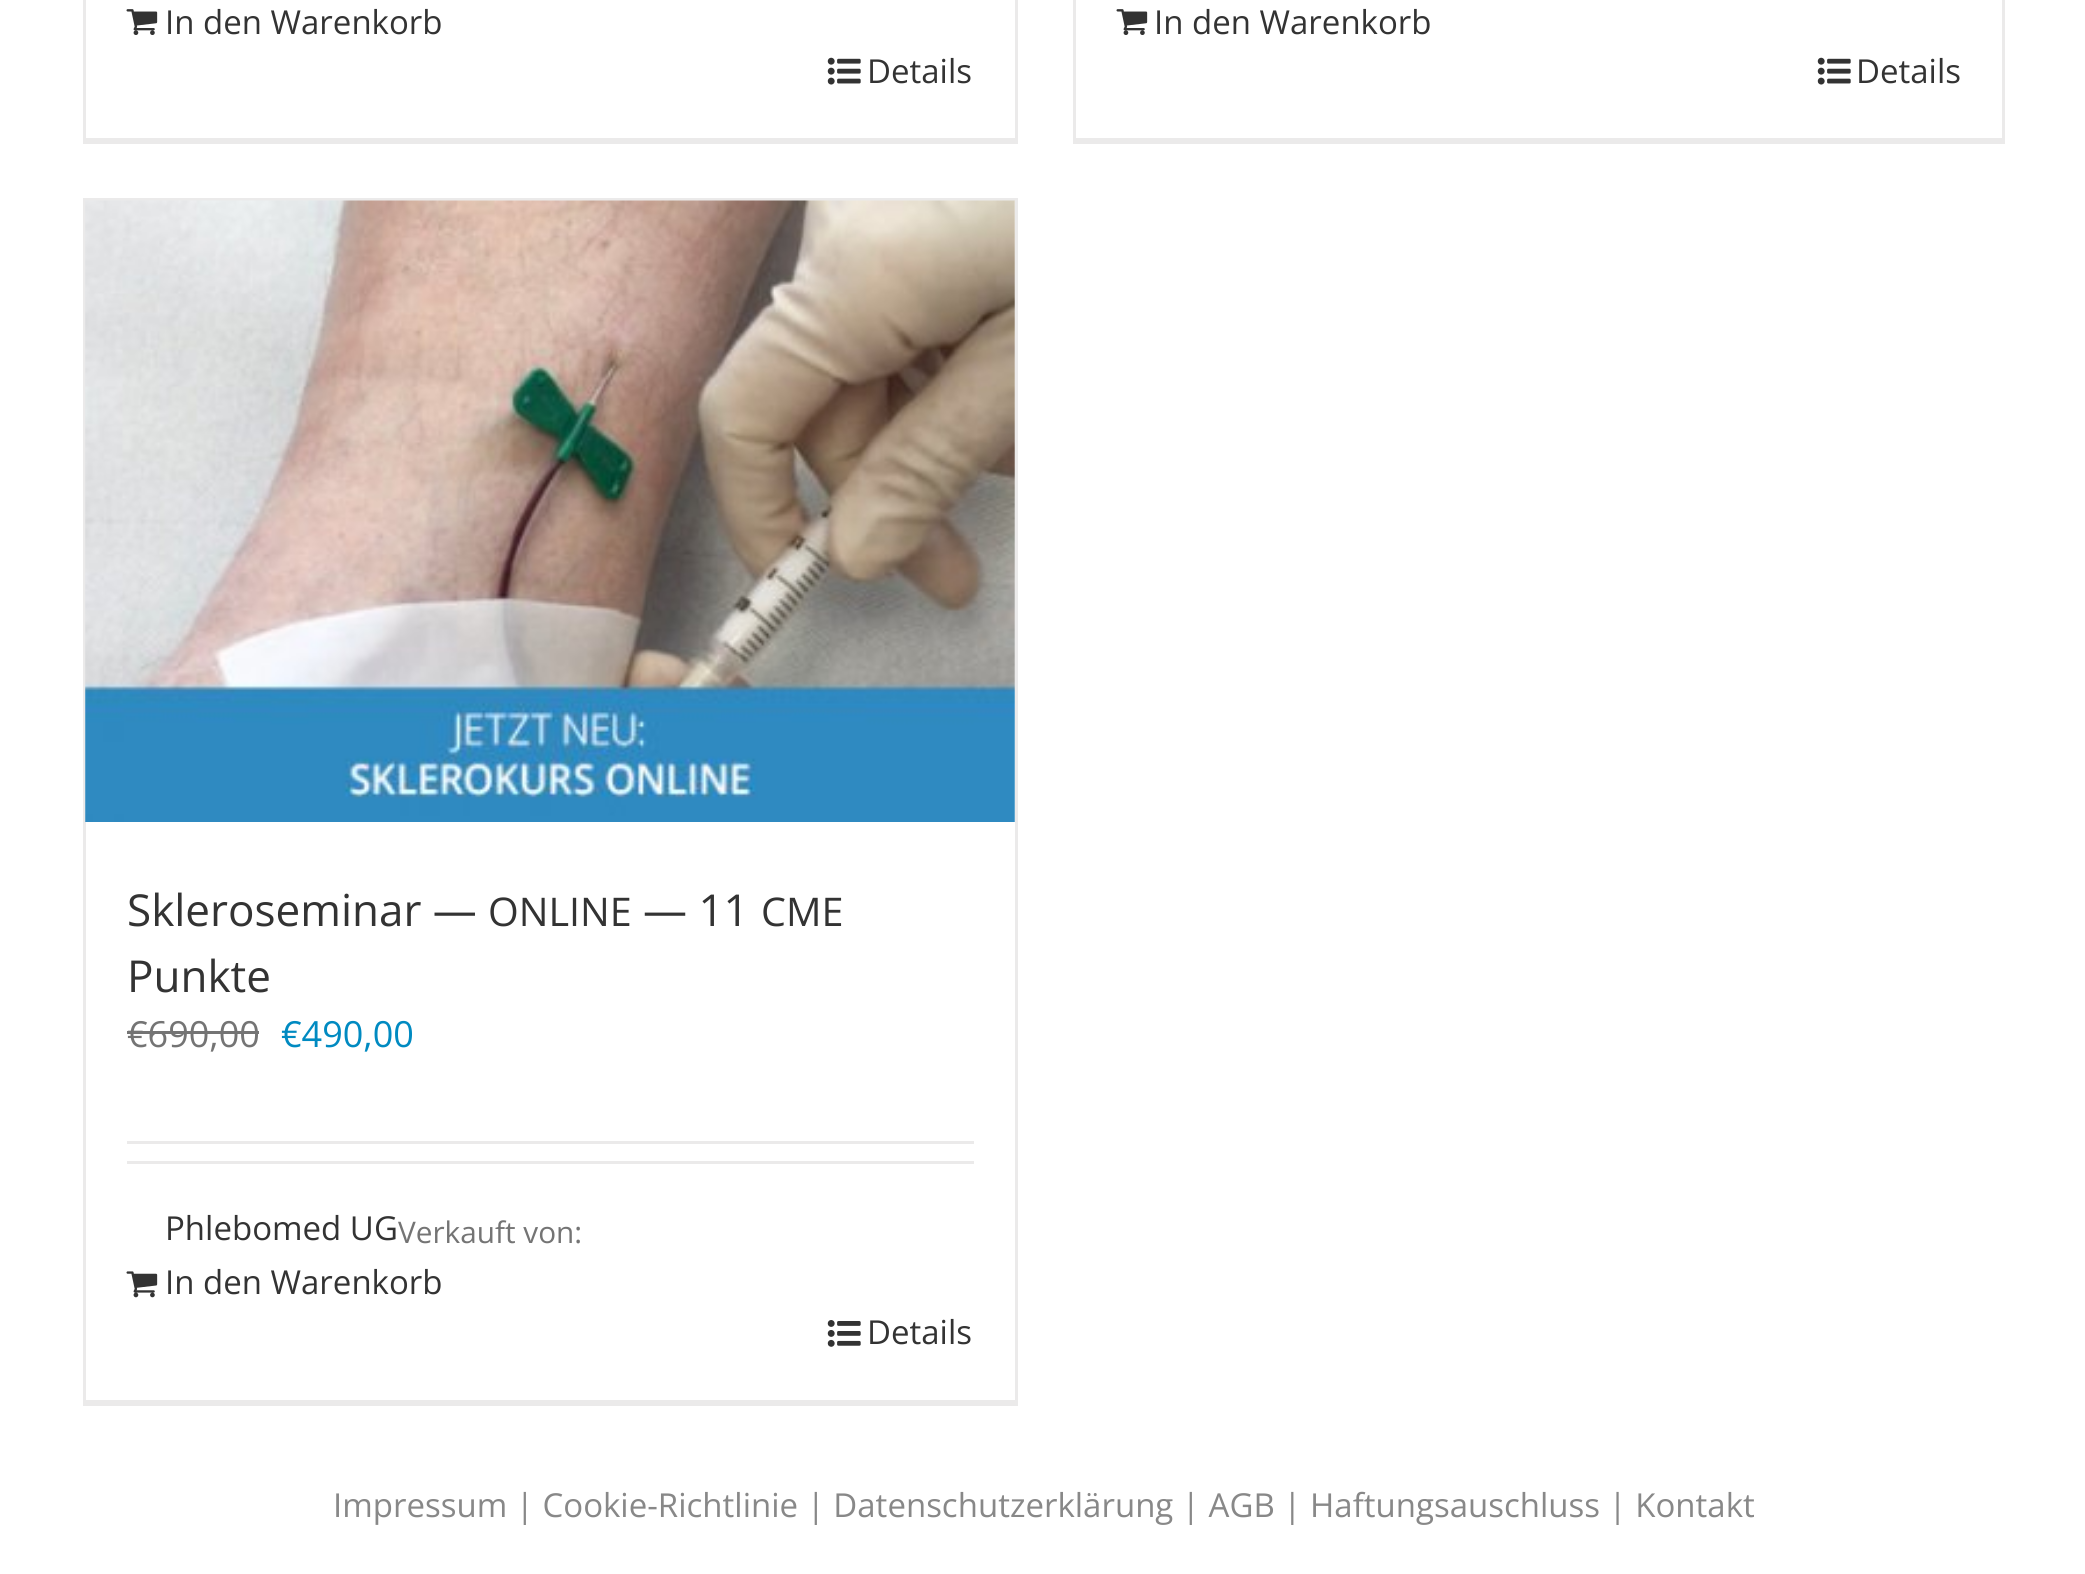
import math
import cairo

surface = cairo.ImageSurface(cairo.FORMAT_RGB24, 2085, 1574)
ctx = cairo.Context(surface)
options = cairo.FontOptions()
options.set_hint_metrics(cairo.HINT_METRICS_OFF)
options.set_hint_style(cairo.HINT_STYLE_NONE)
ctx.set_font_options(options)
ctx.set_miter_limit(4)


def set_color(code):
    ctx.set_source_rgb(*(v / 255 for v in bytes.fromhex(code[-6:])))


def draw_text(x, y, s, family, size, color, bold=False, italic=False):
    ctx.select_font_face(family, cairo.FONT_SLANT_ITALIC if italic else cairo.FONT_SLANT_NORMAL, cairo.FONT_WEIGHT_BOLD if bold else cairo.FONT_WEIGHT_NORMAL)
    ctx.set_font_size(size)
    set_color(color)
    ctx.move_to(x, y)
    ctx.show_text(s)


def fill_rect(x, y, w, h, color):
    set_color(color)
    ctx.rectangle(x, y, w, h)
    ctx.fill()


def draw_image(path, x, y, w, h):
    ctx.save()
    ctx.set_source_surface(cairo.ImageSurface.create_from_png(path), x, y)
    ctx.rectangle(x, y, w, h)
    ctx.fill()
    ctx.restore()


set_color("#ffffff")
ctx.paint()
fill_rect(1015, 0, 3, 143, "#ebeaea")
fill_rect(83, 138, 935, 6, "#ebeaea")
fill_rect(83, 0, 3, 143, "#ebeaea")
draw_image("assets/img1.png", 126, 9, 32, 26)
draw_text(165, 34, "In den Warenkorb", "Open Sans", 33, "#333333")
draw_image("assets/img2.png", 827, 57, 34, 28)
draw_text(867, 83, "Details", "Open Sans", 33, "#333333")
fill_rect(2002, 0, 3, 143, "#ebeaea")
fill_rect(1073, 138, 932, 6, "#ebeaea")
fill_rect(1073, 0, 3, 143, "#ebeaea")
draw_image("assets/img1.png", 1116, 9, 32, 26)
draw_text(1154, 34, "In den Warenkorb", "Open Sans", 33, "#333333")
draw_image("assets/img2.png", 1817, 57, 34, 28)
draw_text(1856, 83, "Details", "Open Sans", 33, "#333333")
fill_rect(83, 198, 935, 3, "#ebeaea")
fill_rect(1015, 198, 3, 1207, "#ebeaea")
fill_rect(83, 1400, 935, 6, "#ebeaea")
fill_rect(83, 198, 3, 1207, "#ebeaea")
draw_image("assets/img3.png", 85, 200, 930, 622)
draw_text(127, 926, "Skleroseminar —", "Open Sans", 44, "#333333")
draw_text(488, 926, "ONLINE", "Open Sans", 39.5, "#333333")
draw_text(643, 926, "— 11", "Open Sans", 44, "#333333")
draw_text(761, 926, "CME", "Open Sans", 39.5, "#333333")
draw_text(127, 992, "Punkte", "Open Sans", 44, "#333333")
draw_text(127, 1047, "€690,00", "Open Sans", 36, "#747474")
fill_rect(127, 1031, 132, 3, "#747474")
draw_text(281, 1047, "€490,00", "Open Sans", 36, "#008ac1")
fill_rect(127, 1141, 847, 3, "#ebeaea")
fill_rect(127, 1161, 847, 3, "#ebeaea")
draw_text(165, 1240, "Phlebomed UG", "Open Sans", 33, "#333333")
draw_text(398, 1243, "Verkauft von:", "Open Sans", 29.75, "#747474")
draw_image("assets/img4.png", 126, 1271, 32, 27)
draw_text(165, 1294, "In den Warenkorb", "Open Sans", 33, "#333333")
draw_image("assets/img5.png", 827, 1320, 34, 27)
draw_text(867, 1344, "Details", "Open Sans", 33, "#333333")
draw_text(333, 1517, "Impressum | Cookie-Richtlinie | Datenschutzerklärung | AGB | Haftungsauschluss | Kontakt", "Open Sans", 33, "#888888")
surface.write_to_png("output.png")
